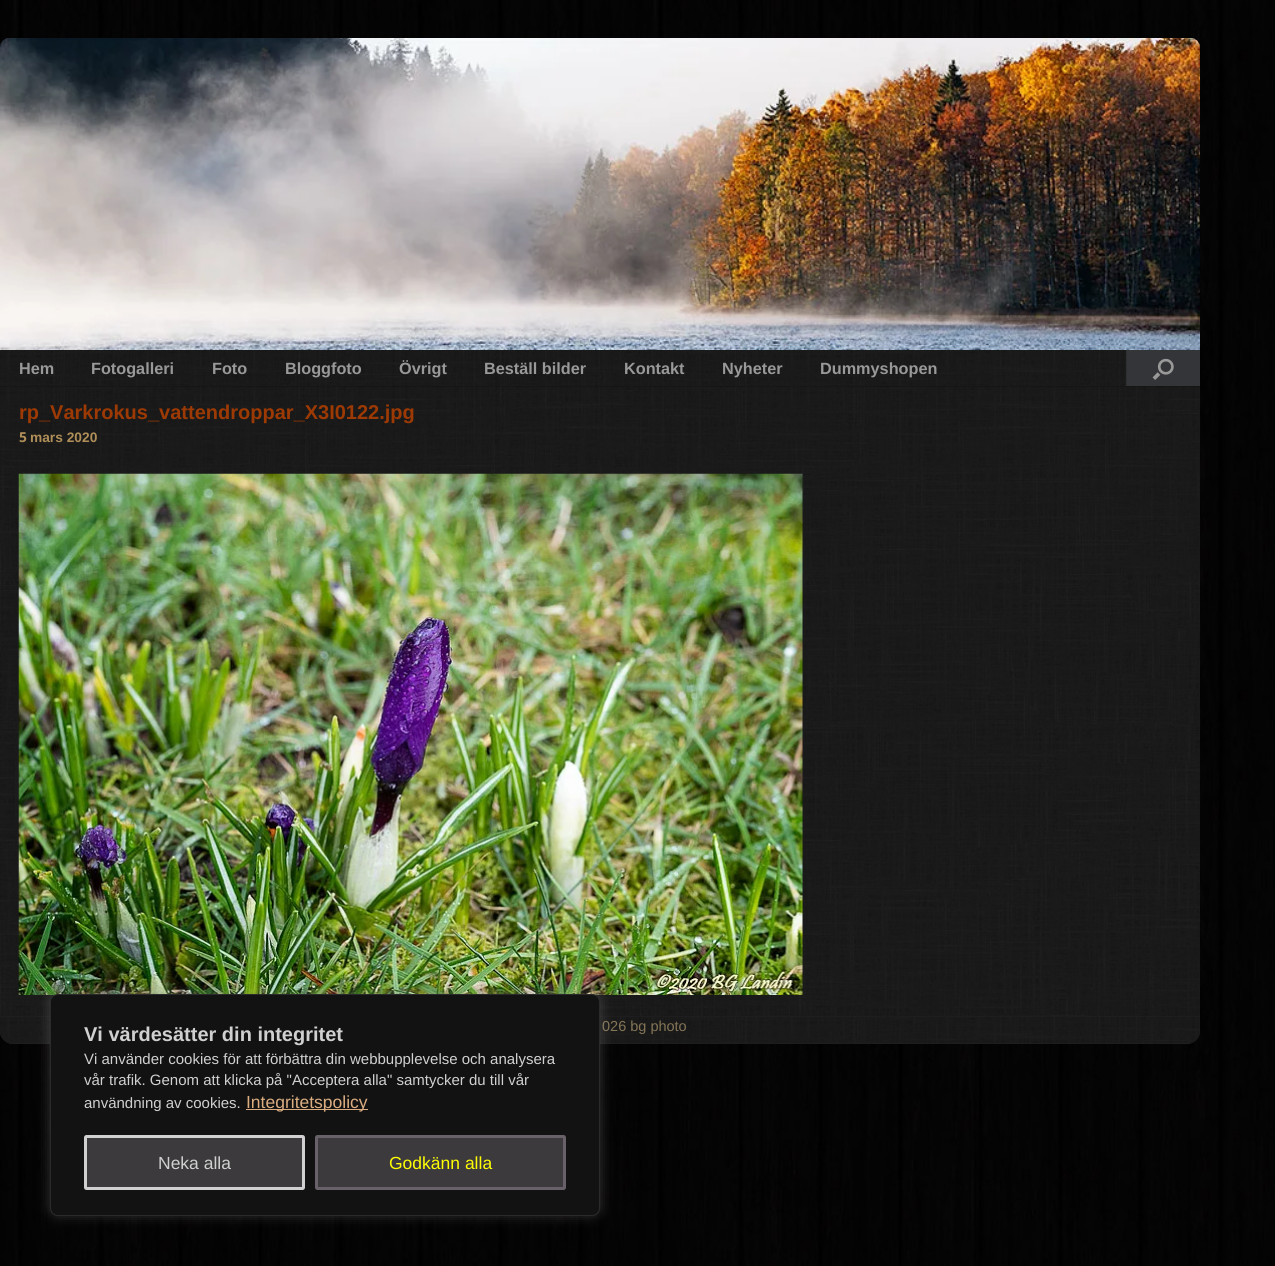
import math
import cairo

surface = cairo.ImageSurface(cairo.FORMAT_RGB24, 1275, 1266)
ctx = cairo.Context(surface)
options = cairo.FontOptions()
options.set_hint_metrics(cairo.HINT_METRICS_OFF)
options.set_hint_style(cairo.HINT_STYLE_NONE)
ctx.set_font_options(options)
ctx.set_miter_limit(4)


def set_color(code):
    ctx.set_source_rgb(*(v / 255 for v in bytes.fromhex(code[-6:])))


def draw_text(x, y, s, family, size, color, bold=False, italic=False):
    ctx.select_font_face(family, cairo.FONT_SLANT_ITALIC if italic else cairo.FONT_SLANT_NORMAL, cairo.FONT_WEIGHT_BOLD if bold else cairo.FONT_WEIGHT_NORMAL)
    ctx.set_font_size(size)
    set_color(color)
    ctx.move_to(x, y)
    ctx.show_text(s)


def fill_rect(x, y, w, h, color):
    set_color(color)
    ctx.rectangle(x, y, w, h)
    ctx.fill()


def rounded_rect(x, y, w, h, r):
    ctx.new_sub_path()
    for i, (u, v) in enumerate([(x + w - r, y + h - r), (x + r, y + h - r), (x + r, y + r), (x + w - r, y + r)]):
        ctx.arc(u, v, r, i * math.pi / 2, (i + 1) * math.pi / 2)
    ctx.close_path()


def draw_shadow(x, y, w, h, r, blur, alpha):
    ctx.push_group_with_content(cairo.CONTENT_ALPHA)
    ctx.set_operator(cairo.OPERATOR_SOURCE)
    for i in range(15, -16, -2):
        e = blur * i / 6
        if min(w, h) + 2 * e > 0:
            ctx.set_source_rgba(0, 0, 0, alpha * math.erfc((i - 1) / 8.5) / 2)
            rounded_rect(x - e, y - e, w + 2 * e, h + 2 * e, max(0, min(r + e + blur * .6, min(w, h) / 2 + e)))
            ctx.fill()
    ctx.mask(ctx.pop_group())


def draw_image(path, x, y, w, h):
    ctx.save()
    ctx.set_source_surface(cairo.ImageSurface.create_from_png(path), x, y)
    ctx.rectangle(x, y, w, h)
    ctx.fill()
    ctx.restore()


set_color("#ffffff")
ctx.paint()
draw_image("assets/img1.png", 0, 0, 1275, 1266)
draw_image("assets/img2.png", 0, 38, 1200, 312)
draw_image("assets/img3.png", 0, 386, 1200, 1)
fill_rect(1126, 350, 74, 36, "#343538")
draw_image("assets/img4.png", 0, 350, 1127, 36)
draw_text(19, 374, "Hem", "Liberation Sans", 16.25, "#9a9999", bold=True)
draw_text(91, 374, "Fotogalleri", "Liberation Sans", 16.25, "#9a9999", bold=True)
draw_text(212, 374, "Foto", "Liberation Sans", 16.25, "#9a9999", bold=True)
draw_text(285, 374, "Bloggfoto", "Liberation Sans", 16.25, "#9a9999", bold=True)
draw_text(399, 374, "Övrigt", "Liberation Sans", 16.25, "#9a9999", bold=True)
draw_text(484, 374, "Beställ bilder", "Liberation Sans", 16.25, "#9a9999", bold=True)
draw_text(624, 374, "Kontakt", "Liberation Sans", 16.25, "#9a9999", bold=True)
draw_text(722, 374, "Nyheter", "Liberation Sans", 16.25, "#9a9999", bold=True)
draw_text(820, 374, "Dummyshopen", "Liberation Sans", 16.25, "#9a9999", bold=True)
draw_image("assets/img5.png", 1152, 358, 22, 22)
draw_image("assets/img6.png", 0, 386, 1200, 630)
draw_text(19, 419, "rp_Varkrokus_vattendroppar_X3I0122.jpg", "Liberation Sans", 20, "#9d3903", bold=True)
draw_text(19, 442, "5", "Noto Sans", 13.75, "#b08e58", bold=True)
draw_text(30, 442, "mars 2020", "Liberation Sans", 13.75, "#b08e58", bold=True)
draw_image("assets/img7.png", 18, 473, 785, 522)
set_color("#222222")
ctx.new_path()
ctx.move_to(0, 1016)
ctx.line_to(1200, 1016)
ctx.line_to(1200, 1031)
ctx.curve_to(1200, 1038, 1194, 1044, 1187, 1044)
ctx.line_to(13, 1044)
ctx.curve_to(6, 1044, 0, 1038, 0, 1031)
ctx.close_path()
ctx.fill()
draw_image("assets/img8.png", 0, 1016, 1200, 28)
draw_text(602, 1031, "026 bg photo", "Liberation Sans", 14.5, "#847556")
set_color("#acabab")
draw_shadow(50, 993, 550, 222, 8, 6, 0.3)
set_color("#121212")
rounded_rect(50.5, 994.5, 549, 221, 7.5)
ctx.fill_preserve()
set_color("#2a2a2a")
ctx.set_line_width(1)
ctx.stroke()
draw_text(84, 1041, "Vi värdesätter din integritet", "Liberation Sans", 20, "#d0d0d0", bold=True)
draw_text(84, 1064, "Vi använder cookies för att förbättra din webbupplevelse och analysera", "Liberation Sans", 15, "#d0d0d0")
draw_text(84, 1085, "vår trafik. Genom att klicka på \"Acceptera alla\" samtycker du till vår", "Liberation Sans", 15, "#d0d0d0")
draw_text(84, 1108, "användning av cookies.", "Liberation Sans", 15, "#d0d0d0")
fill_rect(246, 1109, 122, 1, "#dbad81")
draw_text(246, 1108, "Integritetspolicy", "Liberation Sans", 17.5, "#dbad81")
set_color("#3c3a3c")
rounded_rect(85.5, 1136.5, 218, 52, 1)
ctx.fill_preserve()
set_color("#d0d0d0")
ctx.set_line_width(3)
ctx.stroke()
draw_text(158, 1169, "Neka alla", "Liberation Sans", 17.5, "#d0d0d0")
set_color("#3c3a3c")
rounded_rect(316.5, 1136.5, 248, 52, 1)
ctx.fill_preserve()
set_color("#696169")
ctx.stroke()
draw_text(389, 1169, "Godkänn alla", "Liberation Sans", 17.5, "#fffe05")
surface.write_to_png("output.png")
